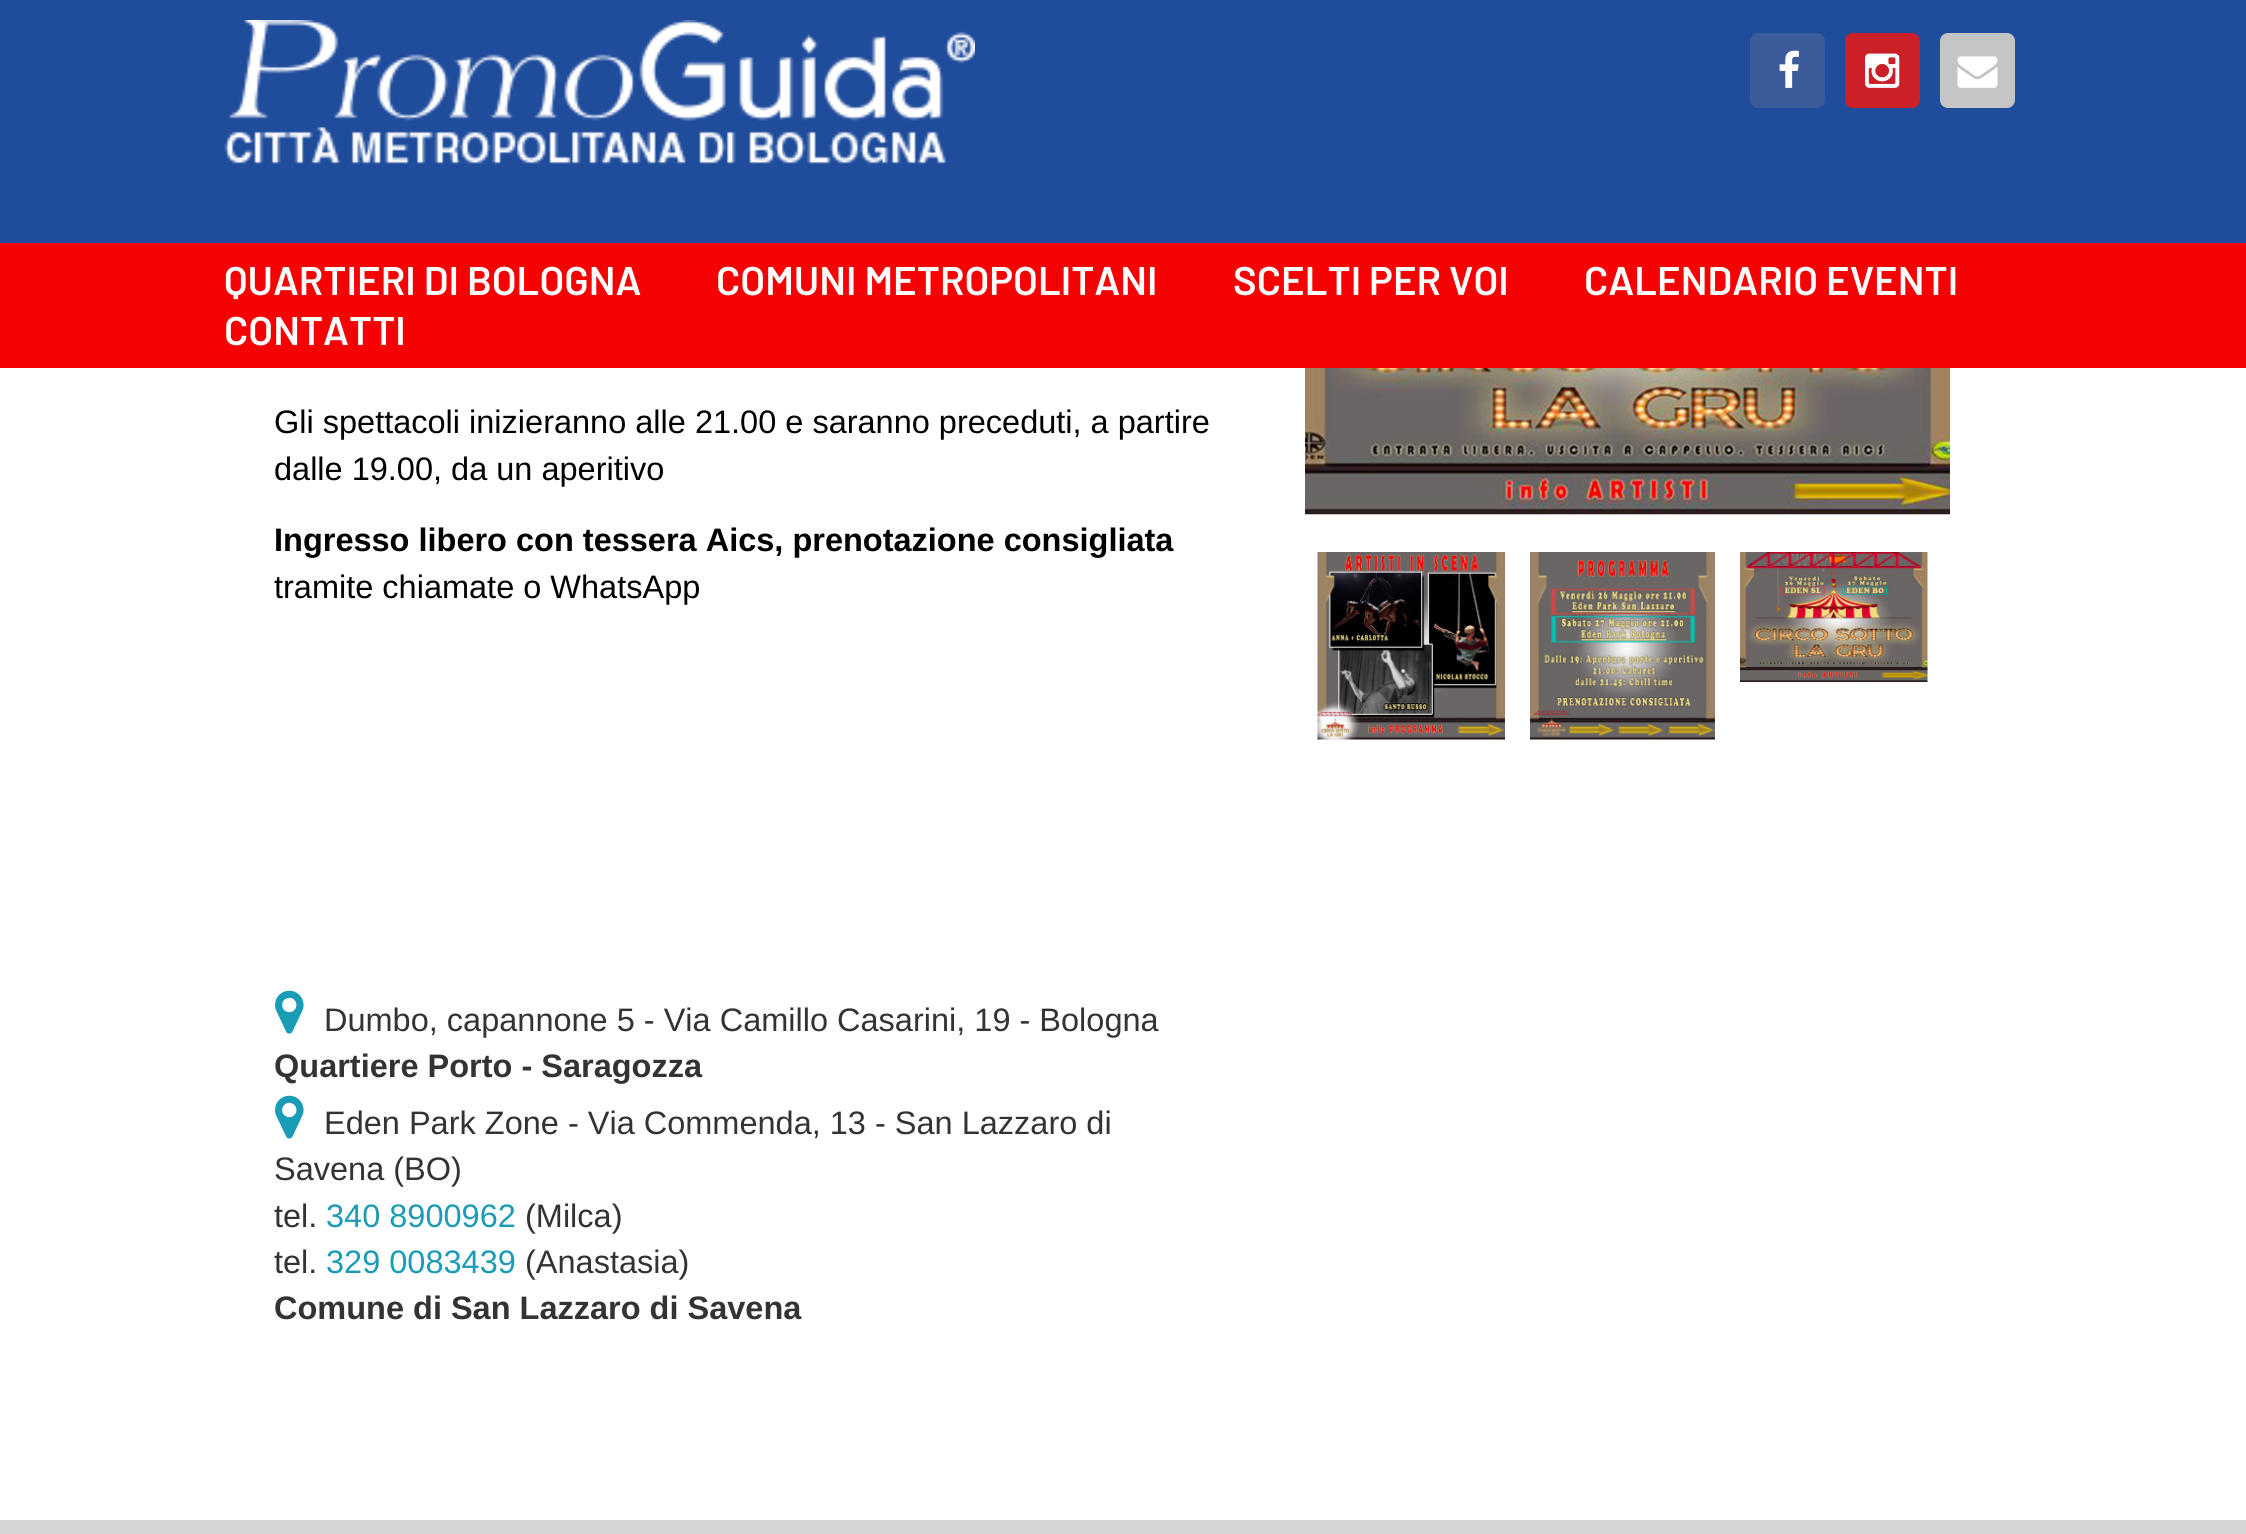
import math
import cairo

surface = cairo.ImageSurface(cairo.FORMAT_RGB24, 2246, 1534)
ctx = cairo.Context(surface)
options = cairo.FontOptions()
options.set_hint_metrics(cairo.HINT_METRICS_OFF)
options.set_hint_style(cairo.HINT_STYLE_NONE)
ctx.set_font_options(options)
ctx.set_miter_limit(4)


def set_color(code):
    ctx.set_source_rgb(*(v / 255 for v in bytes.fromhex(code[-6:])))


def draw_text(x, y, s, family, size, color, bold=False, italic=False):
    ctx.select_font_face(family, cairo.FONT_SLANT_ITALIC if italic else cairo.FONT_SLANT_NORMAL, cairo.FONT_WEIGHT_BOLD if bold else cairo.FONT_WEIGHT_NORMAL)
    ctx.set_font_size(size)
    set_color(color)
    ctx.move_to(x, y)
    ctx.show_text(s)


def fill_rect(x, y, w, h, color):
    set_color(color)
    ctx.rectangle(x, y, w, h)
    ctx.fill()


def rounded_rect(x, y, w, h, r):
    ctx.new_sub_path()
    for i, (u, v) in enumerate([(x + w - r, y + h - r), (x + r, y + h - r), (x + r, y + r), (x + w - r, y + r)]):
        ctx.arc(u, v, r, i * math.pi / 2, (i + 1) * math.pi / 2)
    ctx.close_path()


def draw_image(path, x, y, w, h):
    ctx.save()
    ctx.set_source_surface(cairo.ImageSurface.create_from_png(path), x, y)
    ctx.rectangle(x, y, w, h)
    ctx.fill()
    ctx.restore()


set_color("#ffffff")
ctx.paint()
fill_rect(0, 0, 2246, 243, "#204c9c")
draw_image("assets/img1.png", 224, 20, 751, 144)
set_color("#3c5b9b")
rounded_rect(1750, 33, 75, 75, 8)
ctx.fill()
draw_image("assets/img2.png", 1779, 50, 20, 38)
set_color("#cb2027")
rounded_rect(1845, 33, 75, 75, 8)
ctx.fill()
draw_image("assets/img3.png", 1865, 53, 35, 35)
set_color("#c5c5c5")
rounded_rect(1940, 33, 75, 75, 8)
ctx.fill()
draw_image("assets/img4.png", 1957, 56, 41, 32)
fill_rect(0, 243, 2246, 125, "#f50202")
draw_text(224, 295, "QUARTIERI DI BOLOGNA", "Barlow SemiBold", 40, "#ffffff")
draw_text(716, 295, "COMUNI METROPOLITANI", "Barlow SemiBold", 40, "#ffffff")
draw_text(1233, 295, "SCELTI PER VOI", "Barlow SemiBold", 40, "#ffffff")
draw_text(1584, 295, "CALENDARIO EVENTI", "Barlow SemiBold", 40, "#ffffff")
draw_text(224, 345, "CONTATTI", "Barlow SemiBold", 40, "#ffffff")
draw_text(274, 433, "Gli spettacoli inizieranno alle 21.00 e saranno preceduti, a partire", "Liberation Sans", 32.5, "#000000")
draw_text(274, 480, "dalle 19.00, da un aperitivo", "Liberation Sans", 32.5, "#000000")
draw_text(274, 551, "Ingresso libero con tessera Aics, prenotazione consigliata", "Liberation Sans", 32.5, "#000000", bold=True)
draw_text(274, 598, "tramite chiamate o WhatsApp", "Liberation Sans", 32.5, "#000000")
draw_image("assets/img5.png", 275, 990, 29, 44)
draw_text(324, 1031, "Dumbo, capannone 5 - Via Camillo Casarini, 19 - Bologna", "Liberation Sans", 32.5, "#333333")
draw_text(274, 1077, "Quartiere Porto - Saragozza", "Liberation Sans", 32.5, "#333333", bold=True)
draw_image("assets/img5.png", 275, 1095, 29, 44)
draw_text(324, 1134, "Eden Park Zone - Via Commenda, 13 - San Lazzaro di", "Liberation Sans", 32.5, "#333333")
draw_text(274, 1180, "Savena (BO)", "Liberation Sans", 32.5, "#333333")
draw_text(274, 1227, "tel.", "Liberation Sans", 32.5, "#333333")
draw_text(326, 1227, "340 8900962", "Liberation Sans", 32.5, "#1a9cb7")
draw_text(525, 1227, "(Milca)", "Liberation Sans", 32.5, "#333333")
draw_text(274, 1273, "tel.", "Liberation Sans", 32.5, "#333333")
draw_text(326, 1273, "329 0083439", "Liberation Sans", 32.5, "#1a9cb7")
draw_text(525, 1273, "(Anastasia)", "Liberation Sans", 32.5, "#333333")
draw_text(274, 1319, "Comune di San Lazzaro di Savena", "Liberation Sans", 32.5, "#333333", bold=True)
draw_image("assets/img6.png", 1305, 368, 645, 147)
draw_image("assets/img7.png", 1317, 552, 188, 188)
draw_image("assets/img8.png", 1530, 552, 185, 188)
draw_image("assets/img9.png", 1740, 552, 188, 130)
fill_rect(0, 1520, 2246, 14, "#d6d6d6")
surface.write_to_png("output.png")
